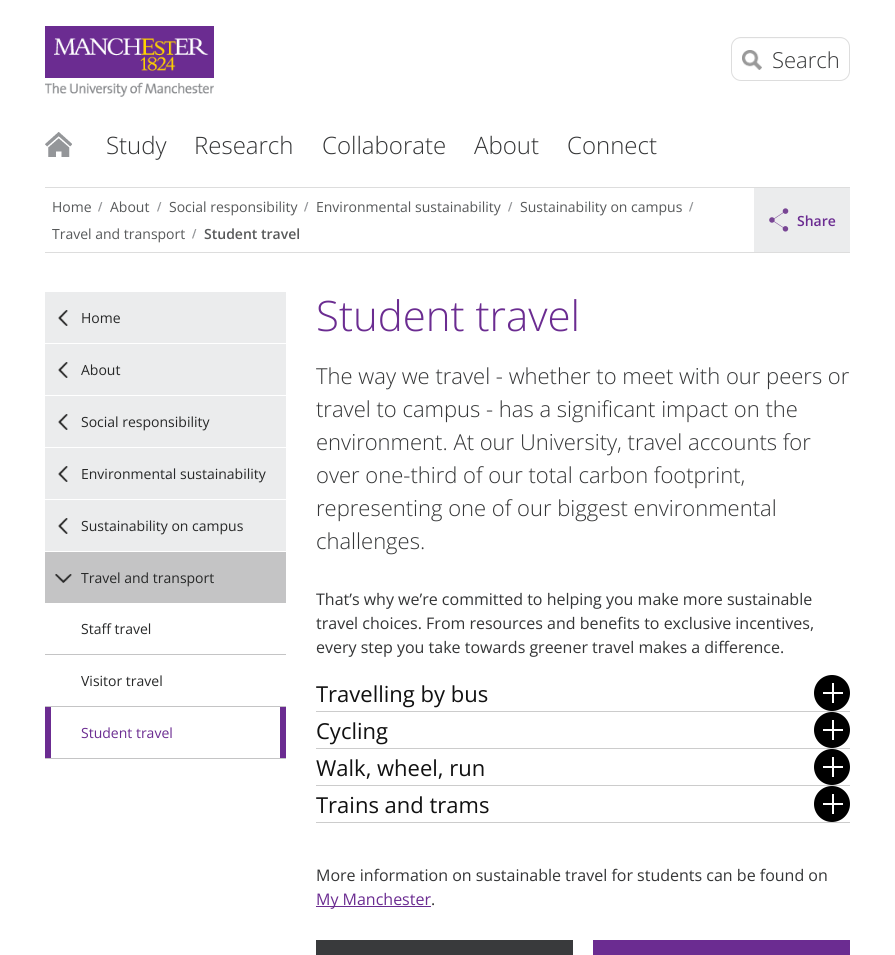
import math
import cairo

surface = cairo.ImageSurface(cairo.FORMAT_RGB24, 895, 955)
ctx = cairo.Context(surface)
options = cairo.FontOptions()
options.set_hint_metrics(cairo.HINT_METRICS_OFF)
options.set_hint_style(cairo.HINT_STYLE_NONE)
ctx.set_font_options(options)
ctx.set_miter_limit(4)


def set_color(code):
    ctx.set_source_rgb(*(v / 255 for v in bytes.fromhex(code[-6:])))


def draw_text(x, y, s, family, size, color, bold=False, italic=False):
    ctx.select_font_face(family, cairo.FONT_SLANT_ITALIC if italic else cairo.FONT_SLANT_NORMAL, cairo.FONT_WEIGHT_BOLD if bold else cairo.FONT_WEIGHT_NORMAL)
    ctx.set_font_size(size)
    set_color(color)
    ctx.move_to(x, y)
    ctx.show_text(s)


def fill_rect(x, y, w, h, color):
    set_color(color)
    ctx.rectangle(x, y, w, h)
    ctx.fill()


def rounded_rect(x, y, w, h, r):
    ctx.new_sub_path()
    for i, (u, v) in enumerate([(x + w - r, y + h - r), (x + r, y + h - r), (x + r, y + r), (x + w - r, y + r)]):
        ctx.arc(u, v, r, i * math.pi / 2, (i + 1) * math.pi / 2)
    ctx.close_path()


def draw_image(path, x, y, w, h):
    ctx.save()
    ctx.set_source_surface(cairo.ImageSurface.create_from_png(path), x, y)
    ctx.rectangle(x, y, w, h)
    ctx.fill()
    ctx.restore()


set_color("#ffffff")
ctx.paint()
draw_image("assets/img1.png", 45, 26, 169, 71)
fill_rect(737, 38, 107, 1, "#fafafa")
rounded_rect(731.5, 37.5, 118, 43, 9.5)
set_color("#dddddd")
ctx.set_line_width(1)
ctx.stroke()
draw_image("assets/img2.png", 742, 50, 20, 20)
draw_text(772, 68, "Search", "Open Sans Light", 22, "#343536")
draw_image("assets/img3.png", 45, 132, 27, 25)
draw_text(106, 154, "Study", "Open Sans Light", 24, "#343536")
draw_text(194, 154, "Research", "Open Sans Light", 24, "#343536")
draw_text(322, 154, "Collaborate", "Open Sans Light", 24, "#343536")
draw_text(474, 154, "About", "Open Sans Light", 24, "#343536")
draw_text(567, 154, "Connect", "Open Sans Light", 24, "#343536")
fill_rect(45, 187, 805, 1, "#dddddd")
fill_rect(45, 252, 805, 1, "#dddddd")
draw_image("assets/img4.png", 98, 202, 5, 10)
draw_text(52, 212, "Home", "Open Sans", 14, "#57595a")
draw_image("assets/img4.png", 157, 202, 5, 10)
draw_text(110, 212, "About", "Open Sans", 14, "#57595a")
draw_image("assets/img4.png", 304, 202, 5, 10)
draw_text(169, 212, "Social responsibility", "Open Sans", 14, "#57595a")
draw_image("assets/img4.png", 508, 202, 5, 10)
draw_text(316, 212, "Environmental sustainability", "Open Sans", 14, "#57595a")
draw_image("assets/img4.png", 689, 202, 5, 10)
draw_text(520, 212, "Sustainability on campus", "Open Sans", 14, "#57595a")
draw_image("assets/img4.png", 192, 229, 5, 10)
draw_text(52, 239, "Travel and transport", "Open Sans", 14, "#57595a")
draw_text(204, 239, "Student travel", "Open Sans SemiBold", 14, "#57595a")
fill_rect(754, 188, 96, 64, "#ebeced")
draw_image("assets/img5.png", 769, 208, 20, 24)
draw_text(797, 226, "Share", "Open Sans SemiBold", 14, "#6b2c91")
fill_rect(45, 292, 241, 51, "#ebeced")
draw_image("assets/img6.png", 58, 310, 10, 16)
draw_text(81, 323, "Home", "Open Sans", 14, "#272828")
fill_rect(45, 344, 241, 51, "#ebeced")
draw_image("assets/img6.png", 58, 362, 10, 16)
draw_text(81, 375, "About", "Open Sans", 14, "#272828")
fill_rect(45, 396, 241, 51, "#ebeced")
draw_image("assets/img6.png", 58, 414, 10, 16)
draw_text(81, 427, "Social responsibility", "Open Sans", 14, "#272828")
fill_rect(45, 448, 241, 51, "#ebeced")
draw_image("assets/img6.png", 58, 466, 10, 16)
draw_text(81, 479, "Environmental sustainability", "Open Sans", 14, "#272828")
fill_rect(45, 500, 241, 51, "#ebeced")
draw_image("assets/img6.png", 58, 518, 10, 16)
draw_text(81, 531, "Sustainability on campus", "Open Sans", 14, "#272828")
fill_rect(45, 552, 241, 51, "#c4c4c5")
draw_image("assets/img7.png", 55, 574, 17, 9)
draw_text(81, 583, "Travel and transport", "Open Sans", 14, "#272828")
fill_rect(45, 654, 241, 1, "#c4c4c5")
draw_text(81, 634, "Staff travel", "Open Sans", 14, "#272828")
fill_rect(45, 706, 241, 1, "#c4c4c5")
draw_text(81, 686, "Visitor travel", "Open Sans", 14, "#272828")
fill_rect(45, 758, 241, 1, "#c4c4c5")
fill_rect(280, 707, 6, 51, "#6b2c91")
fill_rect(45, 707, 6, 51, "#6b2c91")
draw_text(81, 738, "Student travel", "Open Sans", 14, "#6b2c91")
draw_text(316, 331, "Student travel", "Open Sans Light", 42, "#6b2c91")
draw_text(316, 384, "The way we travel - whether to meet with our peers or", "Open Sans Light", 22, "#343536")
draw_text(316, 417, "travel to campus - has a significant impact on the", "Open Sans Light", 22, "#343536")
draw_text(316, 450, "environment. At our University, travel accounts for", "Open Sans Light", 22, "#343536")
draw_text(316, 483, "over one-third of our total carbon footprint,", "Open Sans Light", 22, "#343536")
draw_text(316, 516, "representing one of our biggest environmental", "Open Sans Light", 22, "#343536")
draw_text(316, 549, "challenges.", "Open Sans Light", 22, "#343536")
draw_text(316, 605, "That’s why we’re committed to helping you make more sustainable", "Open Sans", 16, "#343536")
draw_text(316, 629, "travel choices. From resources and benefits to exclusive incentives,", "Open Sans", 16, "#343536")
draw_text(316, 653, "every step you take towards greener travel makes a difference.", "Open Sans", 16, "#343536")
fill_rect(316, 711, 534, 1, "#cccccc")
draw_text(316, 702, "Travelling by bus", "Open Sans", 22, "#111111")
set_color("#000000")
ctx.new_path()
ctx.arc(832, 693, 18, 0, 2 * math.pi)
ctx.fill()
fill_rect(823, 692, 20, 2, "#ffffff")
fill_rect(832, 683, 2, 20, "#ffffff")
fill_rect(316, 748, 534, 1, "#cccccc")
draw_text(316, 739, "Cycling", "Open Sans", 22, "#111111")
set_color("#000000")
ctx.new_path()
ctx.arc(832, 730, 18, 0, 2 * math.pi)
ctx.fill()
fill_rect(823, 729, 20, 2, "#ffffff")
fill_rect(832, 720, 2, 20, "#ffffff")
fill_rect(316, 785, 534, 1, "#cccccc")
draw_text(316, 776, "Walk, wheel, run", "Open Sans", 22, "#111111")
set_color("#000000")
ctx.new_path()
ctx.arc(832, 767, 18, 0, 2 * math.pi)
ctx.fill()
fill_rect(823, 766, 20, 2, "#ffffff")
fill_rect(832, 757, 2, 20, "#ffffff")
fill_rect(316, 822, 534, 1, "#cccccc")
draw_text(316, 813, "Trains and trams", "Open Sans", 22, "#111111")
set_color("#000000")
ctx.new_path()
ctx.arc(832, 804, 18, 0, 2 * math.pi)
ctx.fill()
fill_rect(823, 803, 20, 2, "#ffffff")
fill_rect(832, 794, 2, 20, "#ffffff")
draw_text(316, 881, "More information on sustainable travel for students can be found on", "Open Sans", 16, "#343536")
fill_rect(316, 906, 115, 1, "#6b2c91")
draw_text(316, 905, "My Manchester", "Open Sans", 16, "#6b2c91")
draw_text(431, 905, ".", "Open Sans", 16, "#343536")
fill_rect(316, 940, 257, 15, "#393a3c")
fill_rect(593, 940, 257, 15, "#6b2c91")
surface.write_to_png("output.png")
